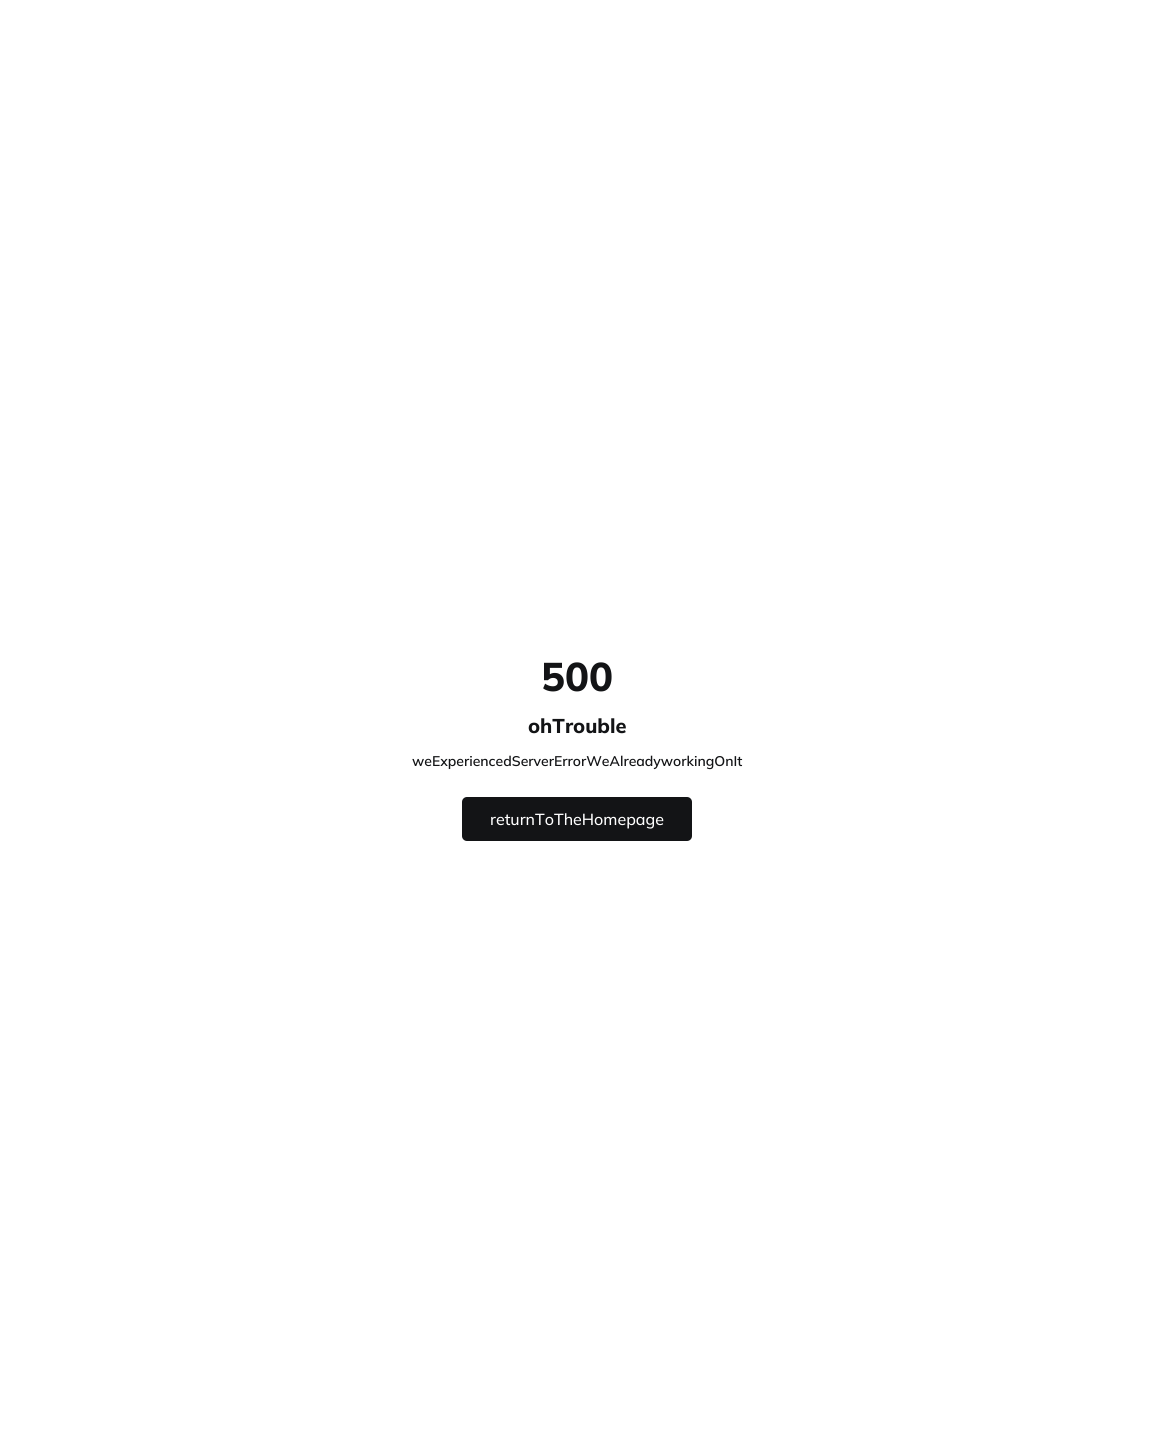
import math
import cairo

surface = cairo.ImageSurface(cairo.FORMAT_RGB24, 1154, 1443)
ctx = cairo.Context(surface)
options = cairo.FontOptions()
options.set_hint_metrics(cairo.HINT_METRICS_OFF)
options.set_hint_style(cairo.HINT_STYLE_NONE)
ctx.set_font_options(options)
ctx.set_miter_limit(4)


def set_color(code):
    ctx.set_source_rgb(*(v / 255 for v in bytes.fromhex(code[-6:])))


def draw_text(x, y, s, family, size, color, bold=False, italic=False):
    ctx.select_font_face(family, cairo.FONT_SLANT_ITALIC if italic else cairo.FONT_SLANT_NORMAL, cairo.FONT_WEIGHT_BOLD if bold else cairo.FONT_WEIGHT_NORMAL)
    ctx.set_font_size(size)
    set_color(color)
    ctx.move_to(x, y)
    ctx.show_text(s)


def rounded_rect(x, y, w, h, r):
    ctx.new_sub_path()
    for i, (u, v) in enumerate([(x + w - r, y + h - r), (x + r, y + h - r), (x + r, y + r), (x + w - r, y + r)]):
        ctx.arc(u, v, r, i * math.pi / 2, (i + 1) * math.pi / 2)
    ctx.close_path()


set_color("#ffffff")
ctx.paint()
draw_text(541, 691, "500", "Mulish ExtraBold", 40, "#131416")
draw_text(528, 733, "ohTrouble", "Mulish ExtraBold", 20, "#131416")
draw_text(412, 766, "weExperiencedServerErrorWeAlreadyworkingOnIt", "Mulish SemiBold", 14, "#131416")
rounded_rect(462, 797, 230, 44, 5)
ctx.fill()
draw_text(490, 825, "returnToTheHomepage", "Mulish Medium", 16, "#ffffff")
surface.write_to_png("output.png")
